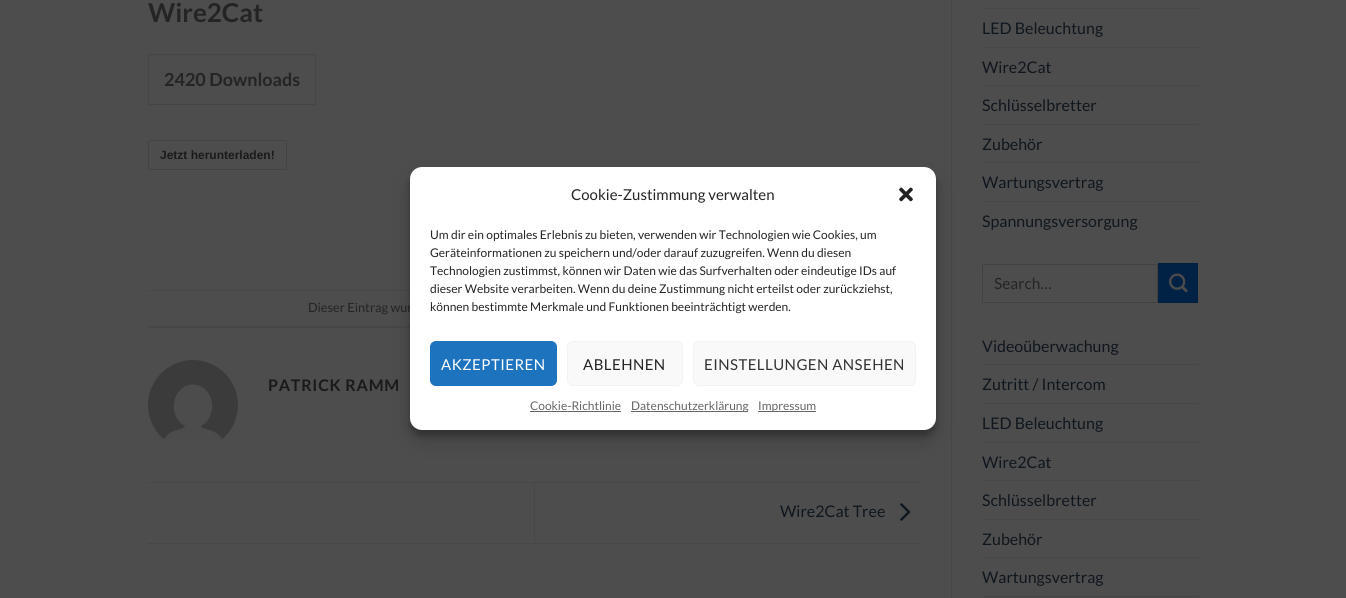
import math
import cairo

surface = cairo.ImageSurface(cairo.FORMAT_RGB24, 1346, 598)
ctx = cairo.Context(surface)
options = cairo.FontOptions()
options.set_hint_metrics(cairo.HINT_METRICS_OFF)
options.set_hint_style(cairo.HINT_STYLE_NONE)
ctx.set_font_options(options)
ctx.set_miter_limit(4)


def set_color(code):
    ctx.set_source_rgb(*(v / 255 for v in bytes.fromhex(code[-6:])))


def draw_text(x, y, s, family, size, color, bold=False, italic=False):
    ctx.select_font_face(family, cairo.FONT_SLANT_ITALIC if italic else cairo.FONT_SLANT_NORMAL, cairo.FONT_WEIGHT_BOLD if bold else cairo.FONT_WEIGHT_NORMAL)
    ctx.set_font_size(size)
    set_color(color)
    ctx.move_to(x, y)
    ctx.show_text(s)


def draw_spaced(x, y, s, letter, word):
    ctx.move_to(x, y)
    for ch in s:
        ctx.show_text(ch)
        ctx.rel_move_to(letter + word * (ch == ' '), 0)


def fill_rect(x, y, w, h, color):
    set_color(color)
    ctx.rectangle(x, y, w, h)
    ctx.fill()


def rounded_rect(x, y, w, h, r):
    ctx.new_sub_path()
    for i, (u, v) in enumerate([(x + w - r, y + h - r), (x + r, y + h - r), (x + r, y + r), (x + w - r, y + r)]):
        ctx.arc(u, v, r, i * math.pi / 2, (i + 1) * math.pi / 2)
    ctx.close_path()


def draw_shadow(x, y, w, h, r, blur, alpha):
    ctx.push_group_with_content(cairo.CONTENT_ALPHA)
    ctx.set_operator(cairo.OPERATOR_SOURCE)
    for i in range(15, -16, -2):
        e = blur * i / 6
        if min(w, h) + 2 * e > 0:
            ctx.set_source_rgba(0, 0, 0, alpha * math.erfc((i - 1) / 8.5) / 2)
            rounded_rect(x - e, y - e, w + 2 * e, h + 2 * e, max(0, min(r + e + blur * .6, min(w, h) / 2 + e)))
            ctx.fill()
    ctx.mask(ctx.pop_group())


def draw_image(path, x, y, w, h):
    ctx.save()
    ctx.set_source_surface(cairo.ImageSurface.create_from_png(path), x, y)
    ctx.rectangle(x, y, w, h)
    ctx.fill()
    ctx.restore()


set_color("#4d4d4d")
ctx.paint()
draw_text(148, 22, "Wire2Cat", "Lato", 26, "#242424", bold=True)
ctx.rectangle(148.5, 54.5, 167, 50)
set_color("#464444")
ctx.set_line_width(1)
ctx.stroke()
draw_text(164, 86, "2420 Downloads", "Lato", 18, "#242424", bold=True)
rounded_rect(148.5, 140.5, 138, 29, 2.5)
set_color("#434343")
ctx.stroke()
draw_text(160, 159, "Jetzt herunterladen!", "Liberation Sans", 12, "#1a1a1a", bold=True)
fill_rect(148, 290, 262, 1, "#474747")
fill_rect(148, 326, 262, 2, "#474747")
draw_text(308, 312, "Dieser Eintrag wur", "Lato", 12.75, "#242424")
draw_image("assets/img1.png", 148, 360, 90, 80)
ctx.select_font_face("Lato", cairo.FONT_SLANT_NORMAL, cairo.FONT_WEIGHT_BOLD)
ctx.set_font_size(16)
set_color("#1a1a1a")
draw_spaced(268, 391, "PATRICK RAMM", 0.75, 0)
fill_rect(148, 482, 773, 1, "#474747")
fill_rect(148, 543, 773, 1, "#474747")
fill_rect(534, 483, 1, 60, "#474747")
draw_text(780, 517, "Wire2Cat Tree", "Lato", 16, "#0f161d")
draw_image("assets/img2.png", 900, 503, 11, 18)
fill_rect(951, 0, 1, 598, "#474747")
fill_rect(982, 8, 216, 1, "#474747")
draw_text(982, 34, "LED Beleuchtung", "Lato", 16, "#0f161d")
fill_rect(982, 47, 216, 1, "#474747")
draw_text(982, 73, "Wire2Cat", "Lato", 16, "#0f161d")
fill_rect(982, 85, 216, 1, "#474747")
draw_text(982, 111, "Schlüsselbretter", "Lato", 16, "#0f161d")
fill_rect(982, 124, 216, 1, "#474747")
draw_text(982, 150, "Zubehör", "Lato", 16, "#0f161d")
fill_rect(982, 162, 216, 1, "#474747")
draw_text(982, 188, "Wartungsvertrag", "Lato", 16, "#0f161d")
fill_rect(982, 201, 216, 1, "#474747")
draw_text(982, 227, "Spannungsversorgung", "Lato", 16, "#0f161d")
ctx.rectangle(982.5, 264.5, 175, 38)
set_color("#424242")
ctx.stroke()
draw_text(994, 289, "Search…", "Lato", 15.5, "#242424")
set_color("#012145")
ctx.rectangle(1158.5, 263.5, 39, 39)
ctx.fill_preserve()
set_color("#011f41")
ctx.stroke()
draw_image("assets/img3.png", 1169, 273, 19, 20)
draw_text(982, 352, "Videoüberwachung", "Lato", 16, "#0f161d")
fill_rect(982, 364, 216, 1, "#474747")
draw_text(982, 390, "Zutritt / Intercom", "Lato", 16, "#0f161d")
fill_rect(982, 403, 216, 1, "#474747")
draw_text(982, 429, "LED Beleuchtung", "Lato", 16, "#0f161d")
fill_rect(982, 442, 216, 1, "#474747")
draw_text(982, 468, "Wire2Cat", "Lato", 16, "#0f161d")
fill_rect(982, 480, 216, 1, "#474747")
draw_text(982, 506, "Schlüsselbretter", "Lato", 16, "#0f161d")
fill_rect(982, 519, 216, 1, "#474747")
draw_text(982, 545, "Zubehör", "Lato", 16, "#0f161d")
fill_rect(982, 557, 216, 1, "#474747")
draw_text(982, 583, "Wartungsvertrag", "Lato", 16, "#0f161d")
fill_rect(982, 596, 216, 1, "#474747")
set_color("#000000")
draw_shadow(410, 173, 526, 263, 12, 3, 0.23)
draw_shadow(410, 177, 526, 263, 12, 10, 0.19)
set_color("#ffffff")
rounded_rect(410, 167, 526, 263, 12)
ctx.fill()
draw_text(571, 200, "Cookie-Zustimmung verwalten", "Lato", 15, "#242424")
draw_image("assets/img4.png", 899, 187, 14, 15)
draw_text(430, 239, "Um dir ein optimales Erlebnis zu bieten, verwenden wir Technologien wie Cookies, um", "Lato", 12, "#242424")
draw_text(430, 257, "Geräteinformationen zu speichern und/oder darauf zuzugreifen. Wenn du diesen", "Lato", 12, "#242424")
draw_text(430, 275, "Technologien zustimmst, können wir Daten wie das Surfverhalten oder eindeutige IDs auf", "Lato", 12, "#242424")
draw_text(430, 293, "dieser Website verarbeiten. Wenn du deine Zustimmung nicht erteilst oder zurückziehst,", "Lato", 12, "#242424")
draw_text(430, 311, "können bestimmte Merkmale und Funktionen beeinträchtigt werden.", "Lato", 12, "#242424")
set_color("#1e73be")
rounded_rect(430.5, 341.5, 126, 44, 5.5)
ctx.fill_preserve()
ctx.stroke()
ctx.set_font_size(15)
set_color("#ffffff")
draw_spaced(441, 370, "AKZEPTIEREN", 0.45, 0)
set_color("#f9f9f9")
rounded_rect(567.5, 341.5, 115, 44, 5.5)
ctx.fill_preserve()
set_color("#f2f2f2")
ctx.stroke()
set_color("#242424")
draw_spaced(583, 370, "ABLEHNEN", 0.45, 0)
set_color("#f9f9f9")
rounded_rect(693.5, 341.5, 222, 44, 5.5)
ctx.fill_preserve()
set_color("#f2f2f2")
ctx.stroke()
set_color("#333333")
draw_spaced(704, 370, "EINSTELLUNGEN ANSEHEN", 0.45, 0)
draw_text(530, 410, "Cookie-Richtlinie", "Lato", 12, "#666666")
fill_rect(530, 411, 91, 1, "#666666")
fill_rect(631, 411, 117, 1, "#666666")
draw_text(631, 410, "Datenschutzerklärung", "Lato", 12, "#666666")
fill_rect(758, 411, 58, 1, "#666666")
draw_text(758, 410, "Impressum", "Lato", 12, "#666666")
surface.write_to_png("output.png")
